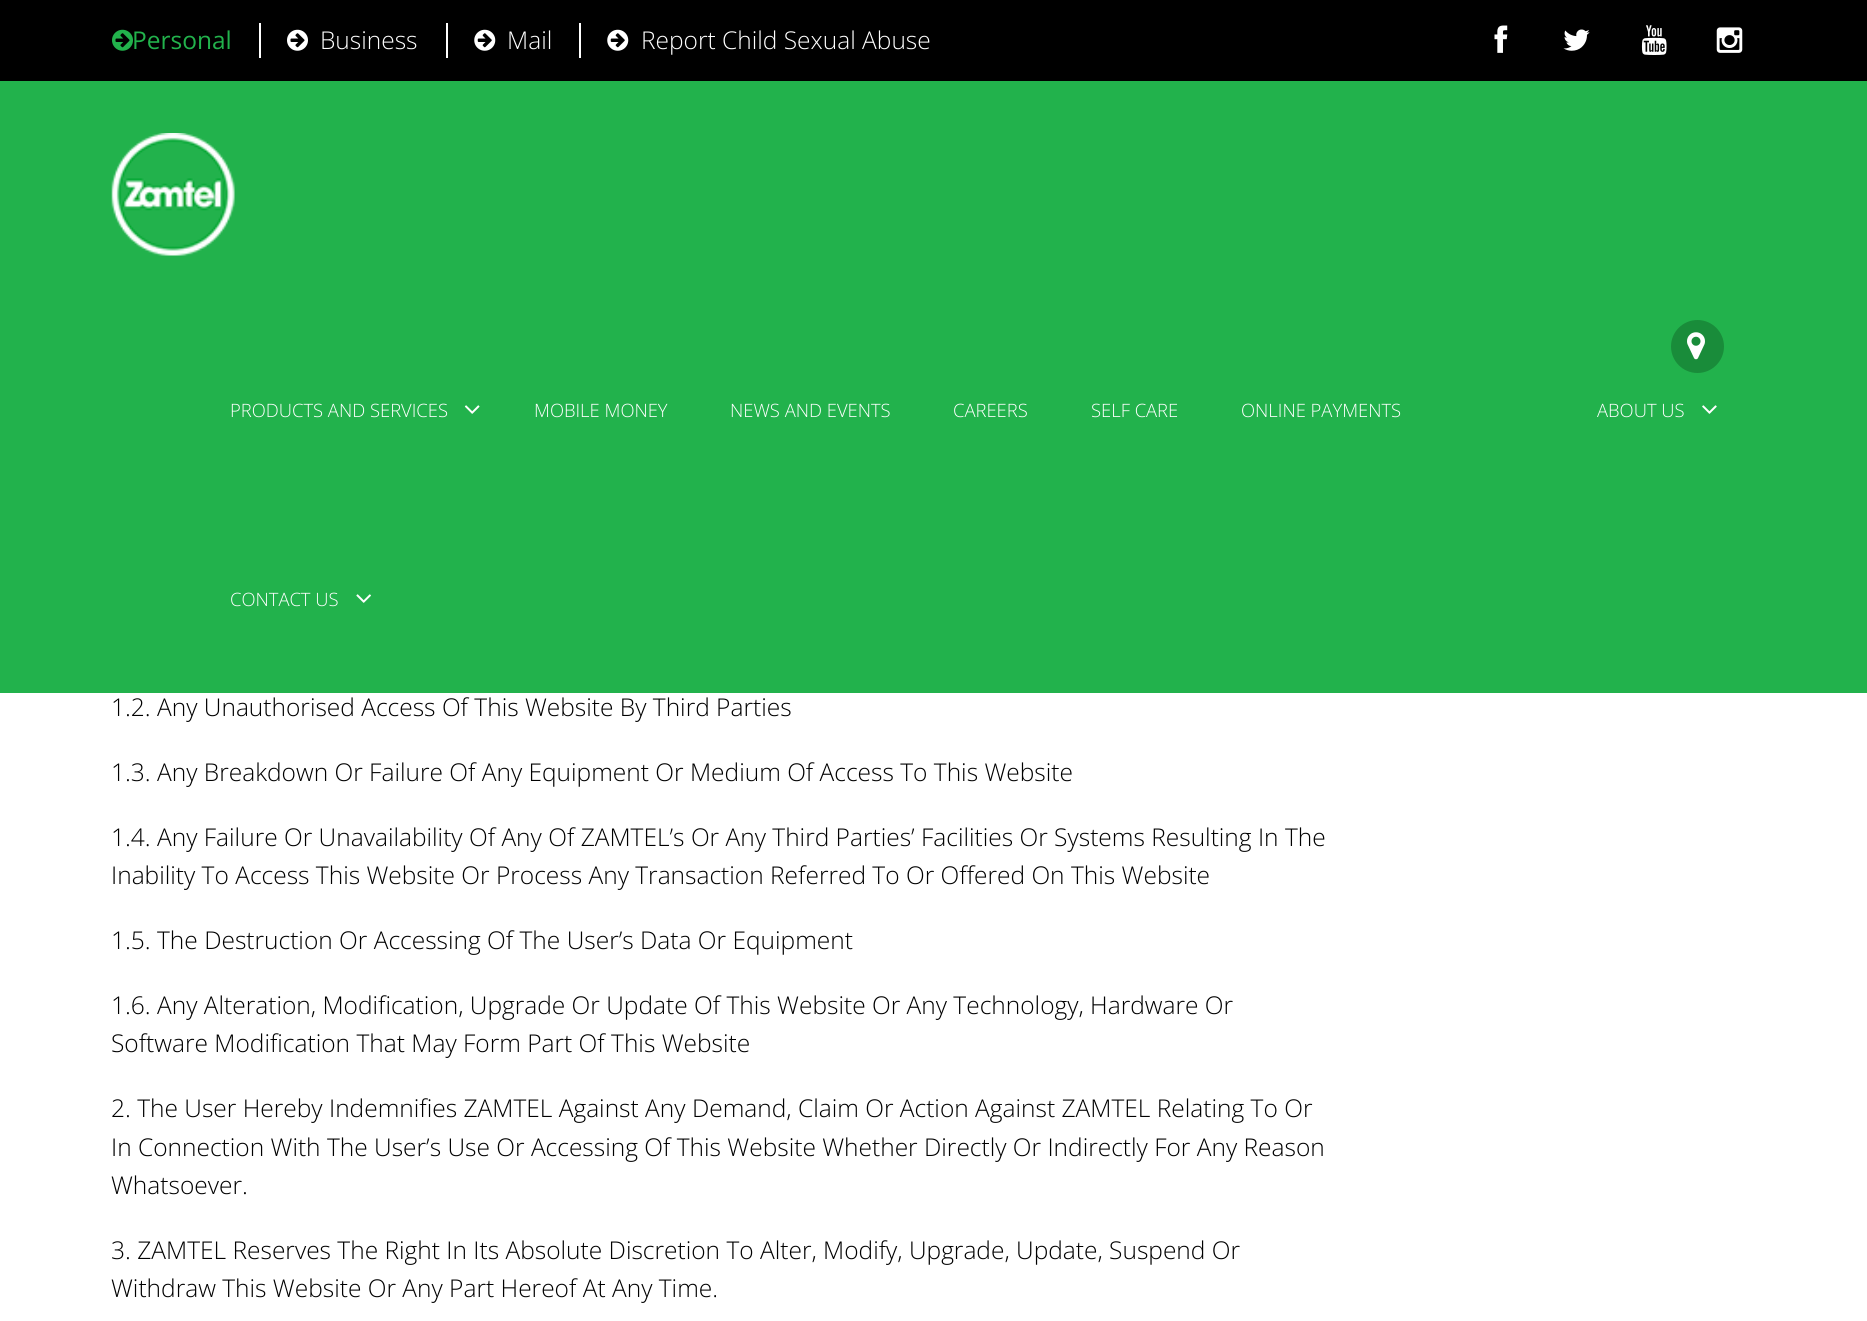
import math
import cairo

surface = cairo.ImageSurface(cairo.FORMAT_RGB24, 1867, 1321)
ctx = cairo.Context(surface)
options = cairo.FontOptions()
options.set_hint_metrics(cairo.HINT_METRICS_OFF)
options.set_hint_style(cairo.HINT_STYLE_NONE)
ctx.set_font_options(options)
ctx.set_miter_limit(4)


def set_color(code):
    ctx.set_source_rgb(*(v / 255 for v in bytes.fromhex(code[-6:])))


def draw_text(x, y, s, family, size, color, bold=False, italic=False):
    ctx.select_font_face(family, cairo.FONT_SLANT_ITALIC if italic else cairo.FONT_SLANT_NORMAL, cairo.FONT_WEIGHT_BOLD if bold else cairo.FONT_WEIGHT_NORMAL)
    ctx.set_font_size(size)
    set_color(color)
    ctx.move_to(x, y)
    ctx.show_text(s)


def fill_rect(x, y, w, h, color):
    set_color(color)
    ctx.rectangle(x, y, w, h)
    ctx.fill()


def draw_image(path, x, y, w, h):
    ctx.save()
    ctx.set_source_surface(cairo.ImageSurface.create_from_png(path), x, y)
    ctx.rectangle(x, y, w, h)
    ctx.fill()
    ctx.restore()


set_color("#ffffff")
ctx.paint()
fill_rect(0, 81, 1867, 612, "#22b24c")
fill_rect(0, 0, 1867, 81, "#000000")
draw_image("assets/img1.png", 112, 29, 21, 22)
draw_text(132, 49, "Personal", "Open Sans", 24.5, "#22b24c")
fill_rect(259, 23, 2, 35, "#ffffff")
draw_image("assets/img2.png", 287, 29, 21, 22)
draw_text(320, 49, "Business", "Open Sans Light", 24.5, "#ffffff")
fill_rect(446, 23, 2, 35, "#ffffff")
draw_image("assets/img3.png", 474, 29, 22, 22)
draw_text(507, 49, "Mail", "Open Sans Light", 24.5, "#ffffff")
fill_rect(579, 23, 2, 35, "#ffffff")
draw_image("assets/img3.png", 607, 29, 22, 22)
draw_text(641, 49, "Report Child Sexual Abuse", "Open Sans Light", 24.5, "#ffffff")
draw_image("assets/img4.png", 1494, 25, 14, 28)
draw_image("assets/img5.png", 1563, 29, 27, 22)
draw_image("assets/img6.png", 1641, 25, 26, 30)
draw_image("assets/img7.png", 1716, 27, 27, 26)
draw_image("assets/img8.png", 111, 133, 124, 123)
set_color("#198c3a")
ctx.arc(1697.5, 346.5, 26.5, 0, 2 * math.pi)
ctx.fill()
draw_image("assets/img9.png", 1687, 332, 18, 28)
draw_text(230, 417, "PRODUCTS AND SERVICES", "Open Sans Light", 18.4, "#ffffff")
draw_image("assets/img10.png", 464, 405, 16, 9)
draw_text(534, 417, "MOBILE MONEY", "Open Sans Light", 18.4, "#ffffff")
draw_text(730, 417, "NEWS AND EVENTS", "Open Sans Light", 18.4, "#ffffff")
draw_text(953, 417, "CAREERS", "Open Sans Light", 18.4, "#ffffff")
draw_text(1091, 417, "SELF CARE", "Open Sans Light", 18.4, "#ffffff")
draw_text(1241, 417, "ONLINE PAYMENTS", "Open Sans Light", 18.4, "#ffffff")
draw_text(1597, 417, "ABOUT US", "Open Sans Light", 18.4, "#ffffff")
draw_image("assets/img11.png", 1702, 405, 15, 9)
draw_text(230, 606, "CONTACT US", "Open Sans Light", 18.4, "#ffffff")
draw_image("assets/img12.png", 356, 594, 15, 9)
draw_text(111, 716, "1.2. Any Unauthorised Access Of This Website By Third Parties", "Open Sans Light", 24.5, "#000000")
draw_text(111, 781, "1.3. Any Breakdown Or Failure Of Any Equipment Or Medium Of Access To This Website", "Open Sans Light", 24.5, "#000000")
draw_text(111, 846, "1.4. Any Failure Or Unavailability Of Any Of ZAMTEL’s Or Any Third Parties’ Facilities Or Systems Resulting In The", "Open Sans Light", 24.5, "#000000")
draw_text(111, 884, "Inability To Access This Website Or Process Any Transaction Referred To Or Offered On This Website", "Open Sans Light", 24.5, "#000000")
draw_text(111, 949, "1.5. The Destruction Or Accessing Of The User’s Data Or Equipment", "Open Sans Light", 24.5, "#000000")
draw_text(111, 1014, "1.6. Any Alteration, Modification, Upgrade Or Update Of This Website Or Any Technology, Hardware Or", "Open Sans Light", 24.5, "#000000")
draw_text(111, 1052, "Software Modification That May Form Part Of This Website", "Open Sans Light", 24.5, "#000000")
draw_text(111, 1117, "2. The User Hereby Indemnifies ZAMTEL Against Any Demand, Claim Or Action Against ZAMTEL Relating To Or", "Open Sans Light", 24.5, "#000000")
draw_text(111, 1156, "In Connection With The User’s Use Or Accessing Of This Website Whether Directly Or Indirectly For Any Reason", "Open Sans Light", 24.5, "#000000")
draw_text(111, 1194, "Whatsoever.", "Open Sans Light", 24.5, "#000000")
draw_text(111, 1259, "3. ZAMTEL Reserves The Right In Its Absolute Discretion To Alter, Modify, Upgrade, Update, Suspend Or", "Open Sans Light", 24.5, "#000000")
draw_text(111, 1297, "Withdraw This Website Or Any Part Hereof At Any Time.", "Open Sans Light", 24.5, "#000000")
surface.write_to_png("output.png")
